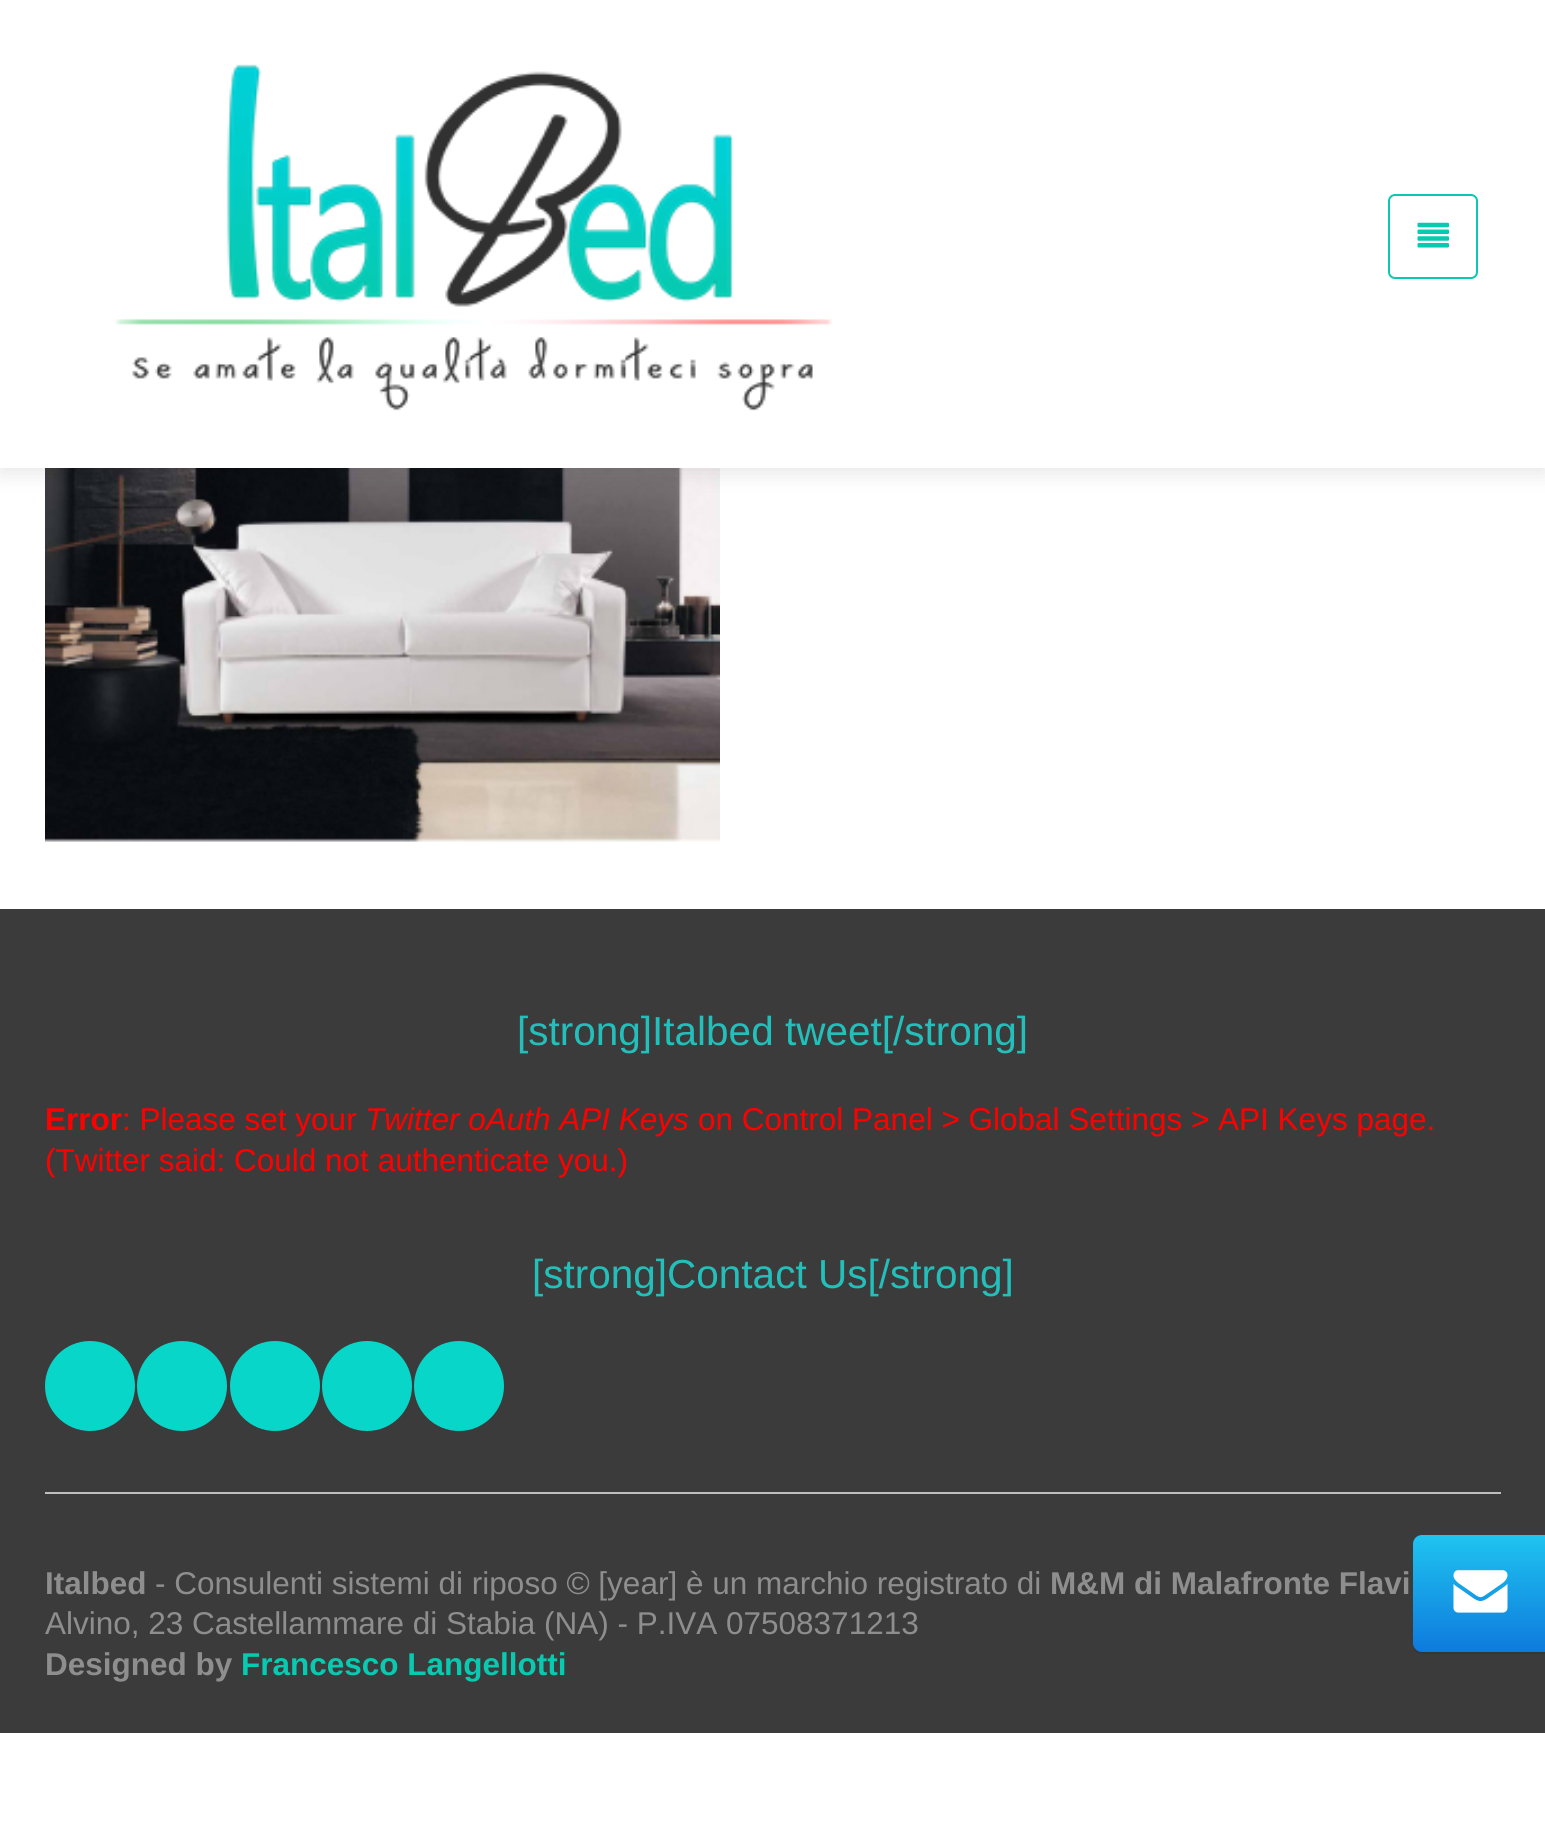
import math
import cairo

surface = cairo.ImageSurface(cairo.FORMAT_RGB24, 1545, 1833)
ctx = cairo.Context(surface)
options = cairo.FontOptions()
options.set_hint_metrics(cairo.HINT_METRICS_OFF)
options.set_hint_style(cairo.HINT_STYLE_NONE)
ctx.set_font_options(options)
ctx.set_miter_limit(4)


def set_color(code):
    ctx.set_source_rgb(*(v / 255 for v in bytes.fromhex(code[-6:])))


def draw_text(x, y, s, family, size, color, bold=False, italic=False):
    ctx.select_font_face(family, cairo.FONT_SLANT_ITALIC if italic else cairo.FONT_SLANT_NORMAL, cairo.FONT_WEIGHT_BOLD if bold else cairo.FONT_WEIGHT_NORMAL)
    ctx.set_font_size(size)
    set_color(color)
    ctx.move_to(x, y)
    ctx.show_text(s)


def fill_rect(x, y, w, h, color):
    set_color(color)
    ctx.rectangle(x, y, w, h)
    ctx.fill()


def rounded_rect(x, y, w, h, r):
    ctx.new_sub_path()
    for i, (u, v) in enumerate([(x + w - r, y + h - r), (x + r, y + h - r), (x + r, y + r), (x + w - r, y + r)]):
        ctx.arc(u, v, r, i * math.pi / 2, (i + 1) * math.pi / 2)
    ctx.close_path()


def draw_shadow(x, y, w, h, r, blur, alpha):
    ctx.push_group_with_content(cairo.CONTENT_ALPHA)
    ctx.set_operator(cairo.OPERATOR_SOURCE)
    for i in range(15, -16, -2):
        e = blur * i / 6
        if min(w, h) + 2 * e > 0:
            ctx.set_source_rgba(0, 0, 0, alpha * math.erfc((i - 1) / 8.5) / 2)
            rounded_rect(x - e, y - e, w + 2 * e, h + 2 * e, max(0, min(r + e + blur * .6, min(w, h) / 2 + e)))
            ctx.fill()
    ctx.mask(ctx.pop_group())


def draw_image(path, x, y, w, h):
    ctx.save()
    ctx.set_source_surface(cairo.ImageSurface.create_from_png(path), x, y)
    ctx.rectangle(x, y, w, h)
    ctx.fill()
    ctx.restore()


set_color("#ffffff")
ctx.paint()
draw_image("assets/img3.png", 45, 468, 675, 374)
set_color("#000000")
draw_shadow(0, 5, 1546, 468, 0, 11, 0.1)
fill_rect(0, 0, 1545, 468, "#ffffff")
draw_image("assets/img1.png", 115, 64, 717, 347)
rounded_rect(1389, 195, 88, 83, 6)
set_color("#07cab1")
ctx.stroke()
draw_image("assets/img2.png", 1417, 222, 32, 26)
fill_rect(0, 909, 1545, 824, "#3b3b3b")
draw_text(517, 1045, "[strong]Italbed tweet[/strong]", "Liberation Sans", 40.5, "#23c0bb")
draw_text(45, 1130, "Error", "Liberation Sans", 31.5, "#ff0000", bold=True)
draw_text(122, 1130, ": Please set your", "Liberation Sans", 31.5, "#ff0000")
draw_text(365, 1130, "Twitter oAuth API Keys", "Liberation Sans", 31.5, "#ff0000", italic=True)
draw_text(698, 1130, "on Control Panel > Global Settings > API Keys page.", "Liberation Sans", 31.5, "#ff0000")
draw_text(45, 1171, "(Twitter said: Could not authenticate you.)", "Liberation Sans", 31.5, "#ff0000")
draw_text(532, 1288, "[strong]Contact Us[/strong]", "Liberation Sans", 40.5, "#23c0bb")
set_color("#08d6c8")
ctx.new_path()
ctx.arc(90, 1386, 45, 0, 2 * math.pi)
ctx.fill()
ctx.arc(182, 1386, 45, 0, 2 * math.pi)
ctx.fill()
ctx.arc(275, 1386, 45, 0, 2 * math.pi)
ctx.fill()
ctx.arc(367, 1386, 45, 0, 2 * math.pi)
ctx.fill()
ctx.arc(459, 1386, 45, 0, 2 * math.pi)
ctx.fill()
fill_rect(45, 1492, 1456, 2, "#bebebe")
draw_text(45, 1594, "Italbed", "Liberation Sans", 31.5, "#8e8e8e", bold=True)
draw_text(155, 1594, "- Consulenti sistemi di riposo © [year] è un marchio registrato di", "Liberation Sans", 31.5, "#8e8e8e")
draw_text(1050, 1594, "M&M di Malafronte Flavi", "Liberation Sans", 31.5, "#8e8e8e", bold=True)
draw_text(45, 1634, "Alvino, 23 Castellammare di Stabia (NA) - P.IVA 07508371213", "Liberation Sans", 31.5, "#8e8e8e")
draw_text(45, 1675, "Designed by", "Liberation Sans", 31.5, "#8e8e8e", bold=True)
draw_text(241, 1675, "Francesco Langellotti", "Liberation Sans", 31.5, "#07cab1", bold=True)
set_color("#363636")
ctx.new_path()
ctx.move_to(1413, 1642)
ctx.line_to(1413, 1645)
ctx.curve_to(1413, 1650, 1417, 1654, 1422, 1654)
ctx.line_to(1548, 1654)
ctx.curve_to(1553, 1654, 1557, 1650, 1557, 1645)
ctx.line_to(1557, 1642)
ctx.curve_to(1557, 1647, 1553, 1652, 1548, 1652)
ctx.line_to(1422, 1652)
ctx.curve_to(1417, 1652, 1413, 1647, 1413, 1642)
ctx.close_path()
ctx.fill()
gradient = cairo.LinearGradient(1485, 1535, 1485, 1652)
gradient.add_color_stop_rgba(0, 0.122, 0.769, 0.941, 1)
gradient.add_color_stop_rgba(1, 0.055, 0.478, 0.867, 1)
ctx.set_source(gradient)
rounded_rect(1413, 1535, 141, 117, 9)
ctx.fill()
draw_image("assets/img4.png", 1453, 1570, 55, 43)
surface.write_to_png("output.png")
